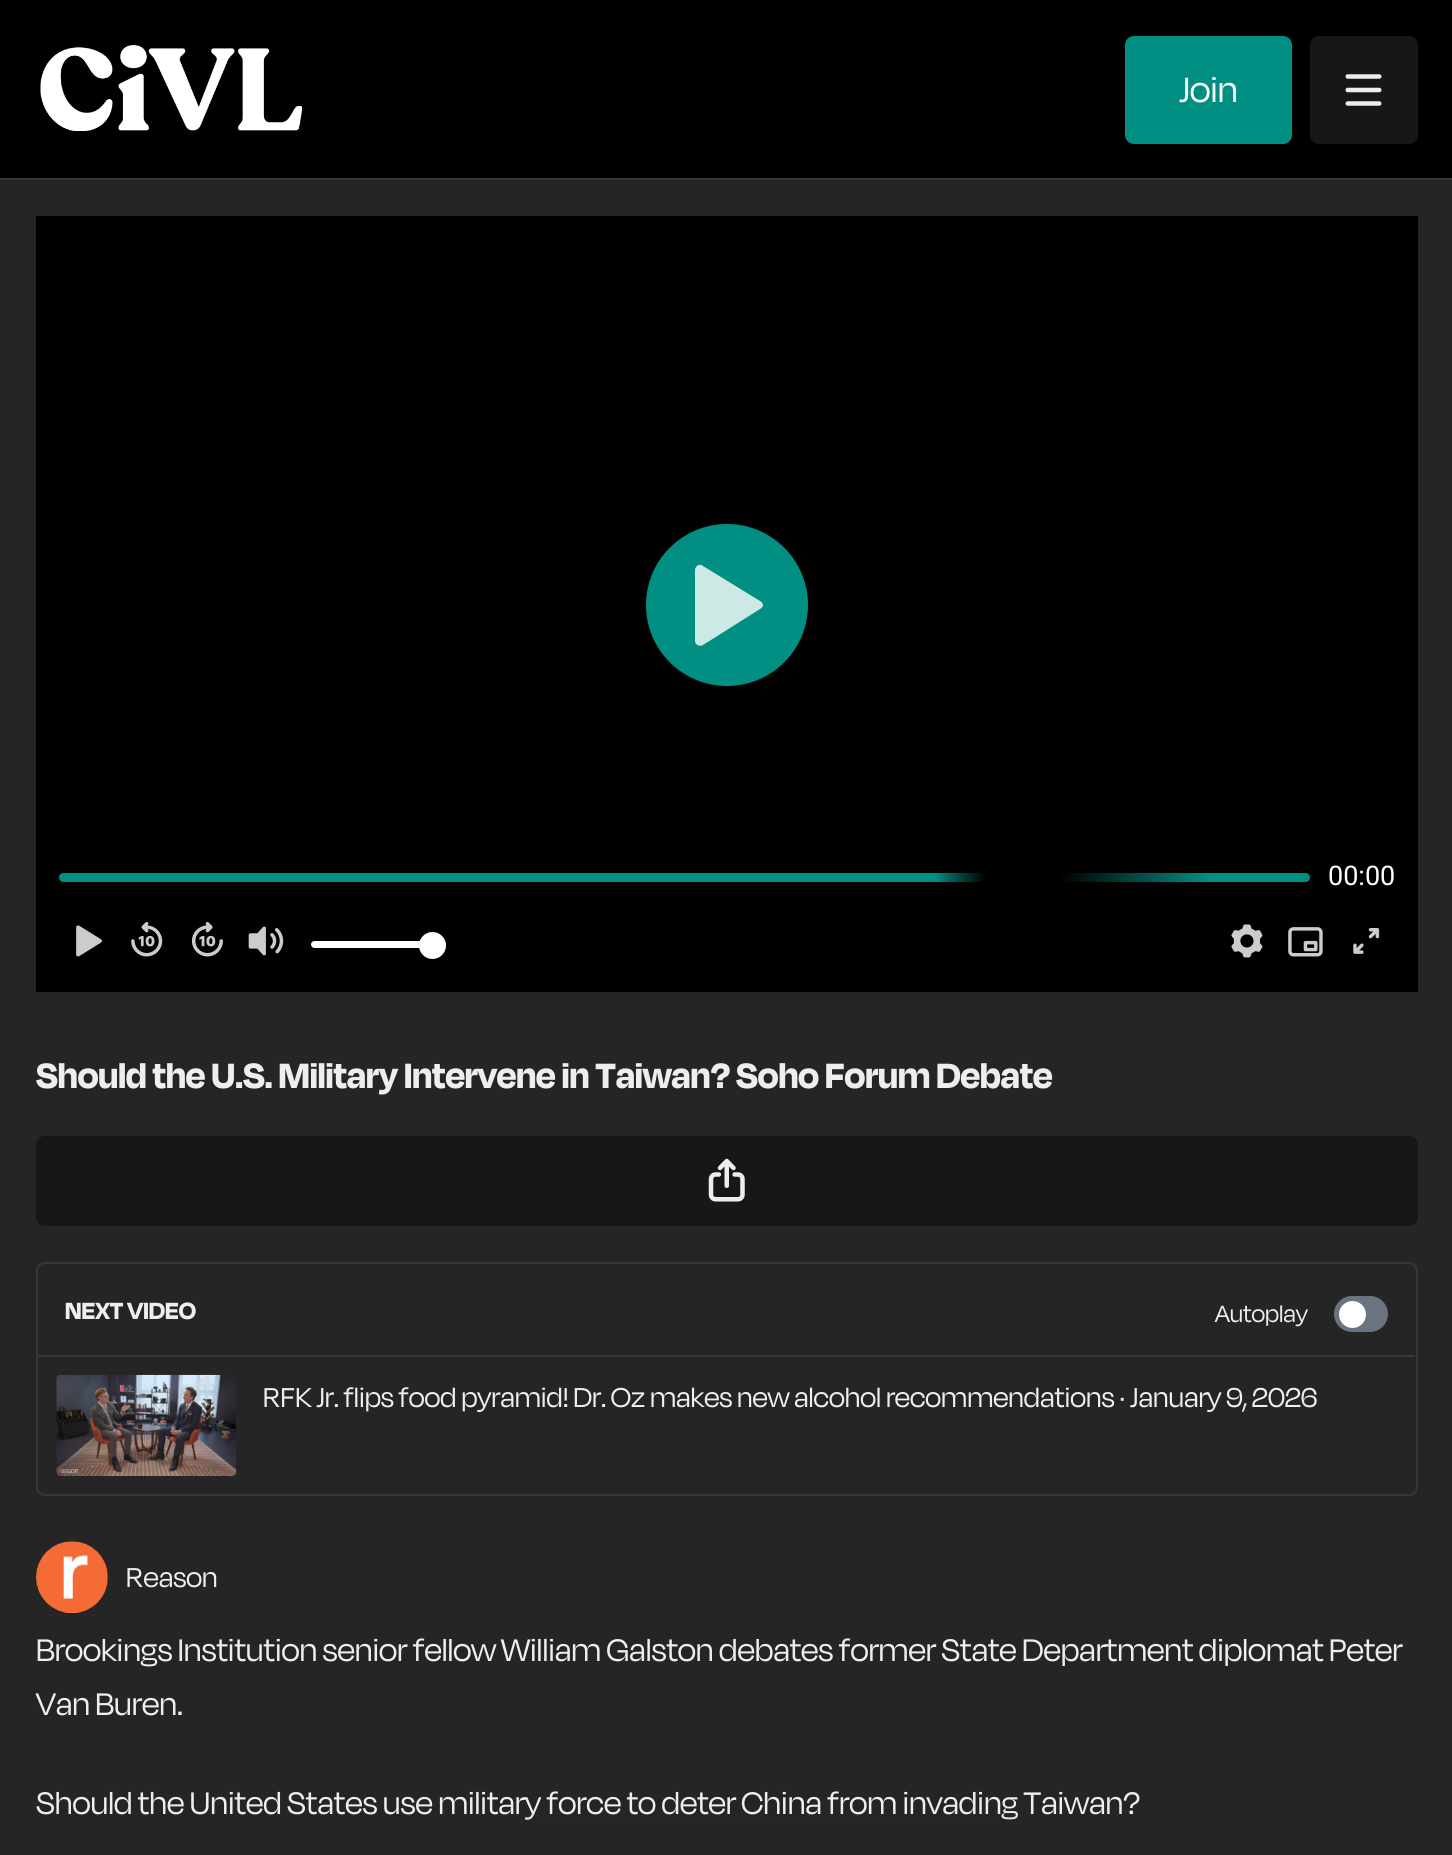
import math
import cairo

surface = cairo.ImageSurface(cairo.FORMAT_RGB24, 1452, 1855)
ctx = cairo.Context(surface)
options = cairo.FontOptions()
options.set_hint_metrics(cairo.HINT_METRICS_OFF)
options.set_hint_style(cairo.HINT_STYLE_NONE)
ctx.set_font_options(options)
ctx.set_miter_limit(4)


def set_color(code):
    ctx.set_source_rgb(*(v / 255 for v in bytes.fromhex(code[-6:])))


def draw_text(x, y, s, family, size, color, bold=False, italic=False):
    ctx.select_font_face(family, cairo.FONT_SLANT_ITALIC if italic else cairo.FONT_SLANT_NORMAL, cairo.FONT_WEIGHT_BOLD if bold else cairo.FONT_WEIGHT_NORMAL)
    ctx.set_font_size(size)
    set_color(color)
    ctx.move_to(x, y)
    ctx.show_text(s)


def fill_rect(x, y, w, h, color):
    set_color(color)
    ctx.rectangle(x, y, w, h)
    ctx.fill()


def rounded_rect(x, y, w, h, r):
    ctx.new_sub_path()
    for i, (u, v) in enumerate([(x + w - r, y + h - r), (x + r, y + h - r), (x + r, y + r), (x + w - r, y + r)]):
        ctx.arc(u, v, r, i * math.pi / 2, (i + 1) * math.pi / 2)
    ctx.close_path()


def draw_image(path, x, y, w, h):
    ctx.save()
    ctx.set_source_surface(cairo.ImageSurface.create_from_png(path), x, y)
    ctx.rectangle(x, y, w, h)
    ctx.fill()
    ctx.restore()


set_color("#252525")
ctx.paint()
fill_rect(0, 0, 1452, 178, "#000000")
fill_rect(0, 178, 1452, 2, "#373737")
draw_image("assets/img1.png", 40, 45, 262, 86)
set_color("#028f83")
rounded_rect(1125, 36, 167, 108, 9)
ctx.fill()
draw_text(1179, 102, "Join", "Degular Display", 40.5, "#ffffff")
set_color("#171717")
rounded_rect(1310, 36, 108, 108, 9)
ctx.fill()
draw_image("assets/img2.png", 1345, 74, 37, 32)
fill_rect(36, 216, 1382, 776, "#000000")
set_color("#028f83")
ctx.arc(727, 605, 81, 0, 2 * math.pi)
ctx.fill()
set_color("#cce9e6")
ctx.new_path()
ctx.move_to(703, 566)
ctx.curve_to(700, 563, 695, 566, 695, 570)
ctx.line_to(695, 641)
ctx.curve_to(695, 645, 700, 647, 703, 645)
ctx.line_to(760, 609)
ctx.curve_to(764, 607, 764, 603, 760, 601)
ctx.close_path()
ctx.fill()
gradient = cairo.LinearGradient(59, 882, 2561, 882)
gradient.add_color_stop_rgba(0.35, 0.008, 0.561, 0.514, 1)
gradient.add_color_stop_rgba(0.37, 0, 0, 0, 1)
gradient.add_color_stop_rgba(0.4, 0, 0, 0, 1)
gradient.add_color_stop_rgba(0.46, 0.008, 0.561, 0.514, 1)
gradient.add_color_stop_rgba(1, 0.008, 0.561, 0.514, 1)
ctx.set_source(gradient)
rounded_rect(59, 873, 1251, 9, 4.5)
ctx.fill()
draw_text(1328, 885, "00:00", "Roboto", 27, "#ffffff")
draw_image("assets/img3.png", 76, 925, 26, 32)
draw_image("assets/img4.png", 131, 922, 32, 35)
draw_image("assets/img5.png", 191, 922, 32, 35)
draw_image("assets/img6.png", 248, 926, 36, 30)
rounded_rect(311, 941, 135, 7, 3.5)
ctx.fill()
ctx.arc(432.5, 945.5, 13.5, 0, 2 * math.pi)
ctx.fill()
draw_image("assets/img7.png", 1231, 924, 32, 34)
draw_image("assets/img8.png", 1288, 927, 35, 30)
draw_image("assets/img9.png", 1353, 928, 27, 26)
draw_text(36, 1088, "Should the U.S. Military Intervene in Taiwan? Soho Forum Debate", "Degular Display", 40.5, "#eeeeee", bold=True)
set_color("#171717")
rounded_rect(36, 1136, 1382, 90, 9)
ctx.fill()
draw_image("assets/img10.png", 708, 1158, 37, 44)
rounded_rect(37, 1263, 1380, 232, 8)
set_color("#373737")
ctx.stroke()
fill_rect(38, 1355, 1377, 2, "#373737")
draw_text(65, 1319, "NEXT VIDEO", "Degular Display", 27, "#eeeeee", bold=True)
draw_text(1215, 1322, "Autoplay", "Degular Display", 27, "#eeeeee")
set_color("#6b7280")
rounded_rect(1334, 1296, 54, 36, 18)
ctx.fill()
set_color("#ffffff")
ctx.arc(1352.5, 1314.5, 13.5, 0, 2 * math.pi)
ctx.fill()
draw_image("assets/img11.png", 56, 1374, 181, 102)
draw_text(263, 1407, "RFK Jr. flips food pyramid! Dr. Oz makes new alcohol recommendations · January 9, 2026", "Degular Display", 31.5, "#eeeeee")
draw_image("assets/img12.png", 36, 1541, 72, 73)
draw_text(126, 1587, "Reason", "Degular Display", 31.5, "#eeeeee")
draw_text(36, 1661, "Brookings Institution senior fellow William Galston debates former State Department diplomat Peter", "Degular Display", 36, "#eeeeee")
draw_text(36, 1715, "Van Buren.", "Degular Display", 36, "#eeeeee")
draw_text(36, 1814, "Should the United States use military force to deter China from invading Taiwan?", "Degular Display", 36, "#eeeeee")
gradient = cairo.LinearGradient(727, 1811, 727, 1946)
gradient.add_color_stop_rgba(0, 0.145, 0.145, 0.145, 0)
gradient.add_color_stop_rgba(1, 0.145, 0.145, 0.145, 1)
ctx.set_source(gradient)
ctx.rectangle(525, 1814, 493, 6)
ctx.fill()
surface.write_to_png("output.png")
